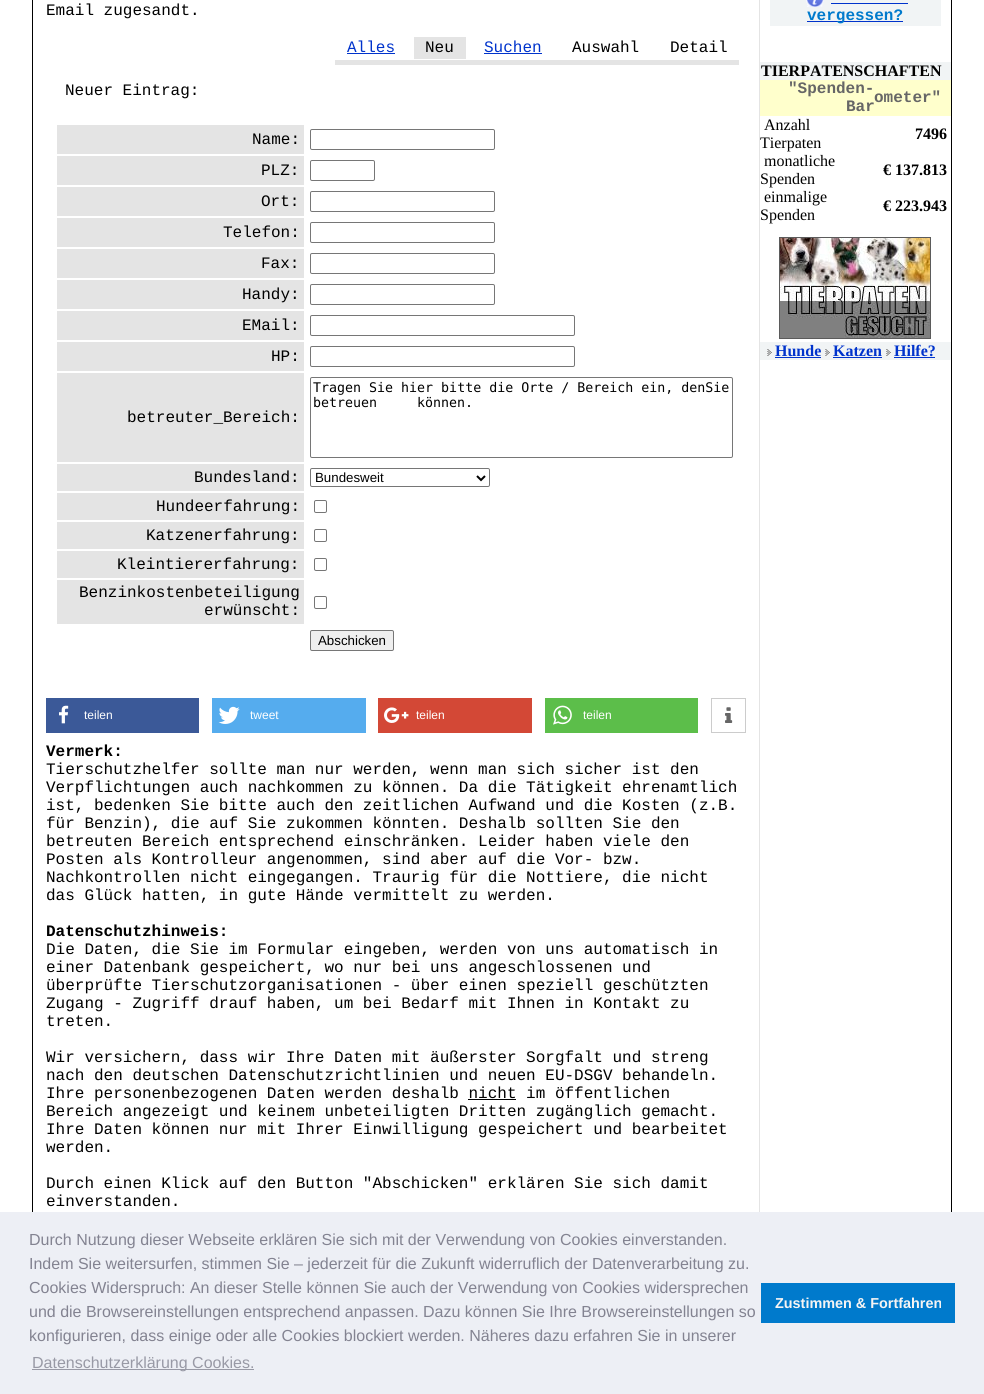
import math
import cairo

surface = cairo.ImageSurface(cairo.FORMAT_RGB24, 984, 1394)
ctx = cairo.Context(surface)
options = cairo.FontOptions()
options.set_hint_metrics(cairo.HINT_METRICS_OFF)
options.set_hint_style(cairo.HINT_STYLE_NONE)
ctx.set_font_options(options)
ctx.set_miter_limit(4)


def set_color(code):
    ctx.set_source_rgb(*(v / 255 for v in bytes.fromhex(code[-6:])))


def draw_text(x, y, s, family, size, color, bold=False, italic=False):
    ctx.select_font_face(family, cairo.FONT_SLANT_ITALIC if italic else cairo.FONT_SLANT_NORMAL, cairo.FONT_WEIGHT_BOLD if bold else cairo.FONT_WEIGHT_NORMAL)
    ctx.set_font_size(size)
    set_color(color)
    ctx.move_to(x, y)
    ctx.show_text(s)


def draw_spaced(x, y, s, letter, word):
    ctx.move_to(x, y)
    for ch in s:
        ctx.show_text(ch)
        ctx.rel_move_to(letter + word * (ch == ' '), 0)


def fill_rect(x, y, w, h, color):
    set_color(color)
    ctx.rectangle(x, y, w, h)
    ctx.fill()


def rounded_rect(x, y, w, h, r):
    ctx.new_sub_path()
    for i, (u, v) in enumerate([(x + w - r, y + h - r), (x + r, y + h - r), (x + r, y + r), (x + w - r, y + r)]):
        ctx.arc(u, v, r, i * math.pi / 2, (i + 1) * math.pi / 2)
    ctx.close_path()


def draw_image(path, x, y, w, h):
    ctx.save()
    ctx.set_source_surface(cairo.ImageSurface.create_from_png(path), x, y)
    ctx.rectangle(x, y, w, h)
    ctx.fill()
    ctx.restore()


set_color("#ffffff")
ctx.paint()
fill_rect(951, 0, 1, 1212, "#000000")
fill_rect(32, 0, 1, 1212, "#000000")
draw_text(46, 15, "Email zugesandt.", "Liberation Mono", 16, "#000000")
draw_text(347, 52, "Alles", "Liberation Mono", 16, "#0033cc")
fill_rect(347, 53, 48, 1, "#0033cc")
fill_rect(414, 37, 52, 22, "#e4e4e4")
draw_text(425, 52, "Neu", "Liberation Mono", 16, "#000000")
draw_text(484, 52, "Suchen", "Liberation Mono", 16, "#0033cc")
fill_rect(484, 53, 58, 1, "#0033cc")
draw_text(572, 52, "Auswahl", "Liberation Mono", 16, "#000000")
draw_text(670, 52, "Detail", "Liberation Mono", 16, "#000000")
fill_rect(335, 60, 404, 5, "#e4e4e4")
draw_text(65, 95, "Neuer Eintrag:", "Liberation Mono", 16, "#000000")
fill_rect(57, 125, 247, 29, "#e4e4e4")
draw_text(252, 144, "Name:", "Liberation Mono", 16, "#000000")
rounded_rect(310.5, 129.5, 184, 20, 1.5)
set_color("#767676")
ctx.set_line_width(1)
ctx.stroke()
fill_rect(57, 156, 247, 29, "#e4e4e4")
draw_text(261, 175, "PLZ:", "Liberation Mono", 16, "#000000")
rounded_rect(310.5, 160.5, 64, 20, 1.5)
set_color("#767676")
ctx.stroke()
fill_rect(57, 187, 247, 29, "#e4e4e4")
draw_text(261, 206, "Ort:", "Liberation Mono", 16, "#000000")
rounded_rect(310.5, 191.5, 184, 20, 1.5)
set_color("#767676")
ctx.stroke()
fill_rect(57, 218, 247, 29, "#e4e4e4")
draw_text(223, 237, "Telefon:", "Liberation Mono", 16, "#000000")
rounded_rect(310.5, 222.5, 184, 20, 1.5)
set_color("#767676")
ctx.stroke()
fill_rect(57, 249, 247, 29, "#e4e4e4")
draw_text(261, 268, "Fax:", "Liberation Mono", 16, "#000000")
rounded_rect(310.5, 253.5, 184, 20, 1.5)
set_color("#767676")
ctx.stroke()
fill_rect(57, 280, 247, 29, "#e4e4e4")
draw_text(242, 299, "Handy:", "Liberation Mono", 16, "#000000")
rounded_rect(310.5, 284.5, 184, 20, 1.5)
set_color("#767676")
ctx.stroke()
fill_rect(57, 311, 247, 29, "#e4e4e4")
draw_text(242, 330, "EMail:", "Liberation Mono", 16, "#000000")
rounded_rect(310.5, 315.5, 264, 20, 1.5)
set_color("#767676")
ctx.stroke()
fill_rect(57, 342, 247, 29, "#e4e4e4")
draw_text(271, 361, "HP:", "Liberation Mono", 16, "#000000")
rounded_rect(310.5, 346.5, 264, 20, 1.5)
set_color("#767676")
ctx.stroke()
rounded_rect(310.5, 377.5, 422, 80, 1.5)
ctx.stroke()
draw_text(313, 392, "Tragen Sie hier bitte die Orte / Bereich ein, denSie", "DejaVu Sans Mono", 13.3, "#000000")
draw_spaced(313, 407, "betreuen können.", 0, 32)
fill_rect(57, 373, 247, 89, "#e4e4e4")
draw_text(127, 422, "betreuter_Bereich:", "Liberation Mono", 16, "#000000")
fill_rect(57, 464, 247, 27, "#e4e4e4")
draw_text(194, 482, "Bundesland:", "Liberation Mono", 16, "#000000")
rounded_rect(310.5, 468.5, 179, 18, 1.5)
set_color("#767676")
ctx.stroke()
ctx.new_path()
ctx.move_to(477, 476)
ctx.line_to(481, 480)
ctx.line_to(485, 476)
set_color("#000000")
ctx.set_line_width(2)
ctx.stroke()
draw_text(315, 482, "Bundesweit", "Liberation Sans", 13.3, "#000000")
fill_rect(57, 493, 247, 27, "#e4e4e4")
draw_text(156, 511, "Hundeerfahrung:", "Liberation Mono", 16, "#000000")
rounded_rect(314.5, 500.5, 12, 12, 1.5)
set_color("#767676")
ctx.set_line_width(1)
ctx.stroke()
fill_rect(57, 522, 247, 27, "#e4e4e4")
draw_text(146, 540, "Katzenerfahrung:", "Liberation Mono", 16, "#000000")
rounded_rect(314.5, 529.5, 12, 12, 1.5)
set_color("#767676")
ctx.stroke()
fill_rect(57, 551, 247, 27, "#e4e4e4")
draw_text(117, 569, "Kleintiererfahrung:", "Liberation Mono", 16, "#000000")
rounded_rect(314.5, 558.5, 12, 12, 1.5)
set_color("#767676")
ctx.stroke()
fill_rect(57, 580, 247, 44, "#e4e4e4")
draw_text(79, 597, "Benzinkostenbeteiligung", "Liberation Mono", 16, "#000000")
draw_text(204, 615, "erwünscht:", "Liberation Mono", 16, "#000000")
rounded_rect(314.5, 596.5, 12, 12, 1.5)
set_color("#767676")
ctx.stroke()
set_color("#efefef")
rounded_rect(310.5, 630.5, 83, 20, 1.5)
ctx.fill_preserve()
set_color("#767676")
ctx.stroke()
draw_text(318, 645, "Abschicken", "Liberation Sans", 13.3, "#000000")
fill_rect(46, 698, 153, 35, "#3b5998")
draw_image("assets/img1.png", 59, 705, 10, 19)
draw_text(84, 719, "teilen", "Liberation Sans", 12, "#ffffff")
fill_rect(212, 698, 154, 35, "#55acee")
draw_image("assets/img2.png", 218, 706, 22, 18)
draw_text(250, 719, "tweet", "Liberation Sans", 12, "#ffffff")
fill_rect(378, 698, 154, 35, "#d34836")
draw_image("assets/img3.png", 384, 707, 25, 16)
draw_text(416, 719, "teilen", "Liberation Sans", 12, "#ffffff")
fill_rect(545, 698, 153, 35, "#5cbe4a")
draw_image("assets/img4.png", 553, 705, 19, 20)
draw_text(583, 719, "teilen", "Liberation Sans", 12, "#ffffff")
ctx.rectangle(711.5, 698.5, 34, 34)
set_color("#cccccc")
ctx.stroke()
draw_image("assets/img5.png", 725, 707, 8, 16)
draw_text(46, 756, "Vermerk:", "Liberation Mono", 16, "#000000", bold=True)
draw_text(46, 774, "Tierschutzhelfer sollte man nur werden, wenn man sich sicher ist den", "Liberation Mono", 16, "#000000")
draw_text(46, 792, "Verpflichtungen auch nachkommen zu können. Da die Tätigkeit ehrenamtlich", "Liberation Mono", 16, "#000000")
draw_text(46, 810, "ist, bedenken Sie bitte auch den zeitlichen Aufwand und die Kosten (z.B.", "Liberation Mono", 16, "#000000")
draw_text(46, 828, "für Benzin), die auf Sie zukommen könnten. Deshalb sollten Sie den", "Liberation Mono", 16, "#000000")
draw_text(46, 846, "betreuten Bereich entsprechend einschränken. Leider haben viele den", "Liberation Mono", 16, "#000000")
draw_text(46, 864, "Posten als Kontrolleur angenommen, sind aber auf die Vor- bzw.", "Liberation Mono", 16, "#000000")
draw_text(46, 882, "Nachkontrollen nicht eingegangen. Traurig für die Nottiere, die nicht", "Liberation Mono", 16, "#000000")
draw_text(46, 900, "das Glück hatten, in gute Hände vermittelt zu werden.", "Liberation Mono", 16, "#000000")
draw_text(46, 936, "Datenschutzhinweis:", "Liberation Mono", 16, "#000000", bold=True)
draw_text(46, 954, "Die Daten, die Sie im Formular eingeben, werden von uns automatisch in", "Liberation Mono", 16, "#000000")
draw_text(46, 972, "einer Datenbank gespeichert, wo nur bei uns angeschlossenen und", "Liberation Mono", 16, "#000000")
draw_text(46, 990, "überprüfte Tierschutzorganisationen - über einen speziell geschützten", "Liberation Mono", 16, "#000000")
draw_text(46, 1008, "Zugang - Zugriff drauf haben, um bei Bedarf mit Ihnen in Kontakt zu", "Liberation Mono", 16, "#000000")
draw_text(46, 1026, "treten.", "Liberation Mono", 16, "#000000")
draw_text(46, 1062, "Wir versichern, dass wir Ihre Daten mit äußerster Sorgfalt und streng", "Liberation Mono", 16, "#000000")
draw_text(46, 1080, "nach den deutschen Datenschutzrichtlinien und neuen EU-DSGV behandeln.", "Liberation Mono", 16, "#000000")
draw_text(46, 1098, "Ihre personenbezogenen Daten werden deshalb nicht im öffentlichen", "Liberation Mono", 16, "#000000")
fill_rect(468, 1099, 48, 1, "#000000")
draw_text(46, 1116, "Bereich angezeigt und keinem unbeteiligten Dritten zugänglich gemacht.", "Liberation Mono", 16, "#000000")
draw_text(46, 1134, "Ihre Daten können nur mit Ihrer Einwilligung gespeichert und bearbeitet", "Liberation Mono", 16, "#000000")
draw_text(46, 1152, "werden.", "Liberation Mono", 16, "#000000")
draw_text(46, 1188, "Durch einen Klick auf den Button \"Abschicken\" erklären Sie sich damit", "Liberation Mono", 16, "#000000")
draw_text(46, 1206, "einverstanden.", "Liberation Mono", 16, "#000000")
fill_rect(759, 0, 1, 1212, "#e4e4e4")
fill_rect(770, 0, 171, 26, "#f1f4f5")
draw_image("assets/img6.png", 806, 0, 18, 7)
fill_rect(807, 21, 96, 1, "#0033cc")
draw_text(807, 20, "vergessen?", "Liberation Mono", 16, "#007acc", bold=True)
fill_rect(831, 3, 77, 1, "#0033cc")
fill_rect(760, 62, 191, 18, "#f1f4f5")
draw_text(761, 76, "TIERPATENSCHAFTEN", "Liberation Serif", 16, "#000000", bold=True)
fill_rect(760, 80, 191, 36, "#ffffcc")
draw_text(788, 93, "\"Spenden-", "Liberation Mono", 16, "#666666", bold=True)
draw_text(846, 111, "Bar", "Liberation Mono", 16, "#666666", bold=True)
draw_text(874, 102, "ometer\"", "Liberation Mono", 16, "#666666", bold=True)
draw_text(764, 130, "Anzahl", "Liberation Serif", 16, "#000000")
draw_text(760, 148, "Tierpaten", "Liberation Serif", 16, "#000000")
draw_text(915, 139, "7496", "Liberation Serif", 16, "#000000", bold=True)
draw_text(764, 166, "monatliche", "Liberation Serif", 16, "#000000")
draw_text(760, 184, "Spenden", "Liberation Serif", 16, "#000000")
draw_text(883, 175, "€ 137.813", "Liberation Serif", 16, "#000000", bold=True)
draw_text(764, 202, "einmalige", "Liberation Serif", 16, "#000000")
draw_text(760, 220, "Spenden", "Liberation Serif", 16, "#000000")
draw_text(883, 211, "€ 223.943", "Liberation Serif", 16, "#000000", bold=True)
ctx.rectangle(779.5, 237.5, 151, 101)
set_color("#5b5b5b")
ctx.stroke()
draw_image("assets/img7.png", 780, 238, 150, 100)
fill_rect(760, 342, 191, 18, "#f1f4f5")
draw_image("assets/img8.png", 767, 349, 5, 7)
draw_text(775, 356, "Hunde", "Liberation Serif", 16, "#0033cc", bold=True)
fill_rect(775, 357, 46, 1, "#0033cc")
draw_image("assets/img8.png", 825, 349, 5, 7)
draw_text(833, 356, "Katzen", "Liberation Serif", 16, "#0033cc", bold=True)
fill_rect(833, 357, 49, 1, "#0033cc")
draw_image("assets/img9.png", 886, 349, 5, 7)
draw_text(894, 356, "Hilfe?", "Liberation Serif", 16, "#0033cc", bold=True)
fill_rect(894, 357, 41, 1, "#0033cc")
fill_rect(0, 1212, 984, 182, "#edeff5")
draw_text(29, 1245, "Durch Nutzung dieser Webseite erklären Sie sich mit der Verwendung von Cookies einverstanden.", "Liberation Sans", 16, "#838391")
draw_text(29, 1269, "Indem Sie weitersurfen, stimmen Sie – jederzeit für die Zukunft widerruflich der Datenverarbeitung zu.", "Liberation Sans", 16, "#838391")
draw_text(29, 1293, "Cookies Widerspruch: An dieser Stelle können Sie auch der Verwendung von Cookies widersprechen", "Liberation Sans", 16, "#838391")
draw_text(29, 1317, "und die Browsereinstellungen entsprechend anpassen. Dazu können Sie Ihre Browsereinstellungen so", "Liberation Sans", 16, "#838391")
draw_text(29, 1341, "konfigurieren, dass einige oder alle Cookies blockiert werden. Näheres dazu erfahren Sie in unserer", "Liberation Sans", 16, "#838391")
fill_rect(32, 1369, 222, 1, "#9899a5")
draw_text(32, 1368, "Datenschutzerklärung Cookies.", "Liberation Sans", 16, "#9899a5")
fill_rect(761, 1283, 194, 40, "#007acc")
draw_text(775, 1308, "Zustimmen & Fortfahren", "Liberation Sans", 14.4, "#f5f4f4", bold=True)
surface.write_to_png("output.png")
